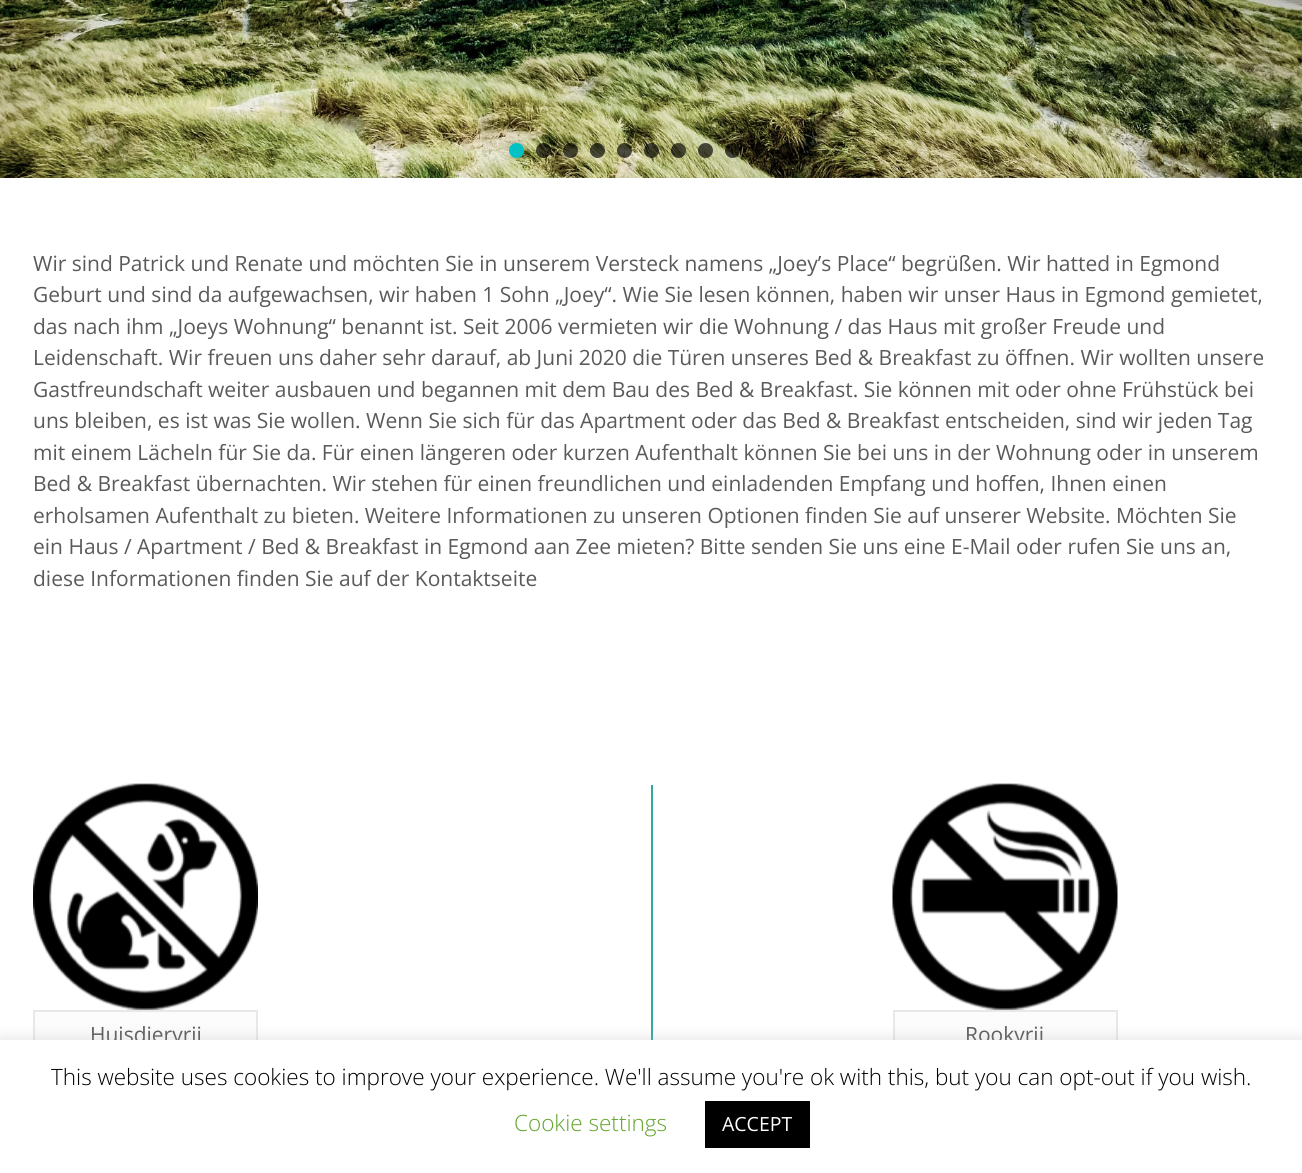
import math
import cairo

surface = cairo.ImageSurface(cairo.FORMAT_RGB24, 1302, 1173)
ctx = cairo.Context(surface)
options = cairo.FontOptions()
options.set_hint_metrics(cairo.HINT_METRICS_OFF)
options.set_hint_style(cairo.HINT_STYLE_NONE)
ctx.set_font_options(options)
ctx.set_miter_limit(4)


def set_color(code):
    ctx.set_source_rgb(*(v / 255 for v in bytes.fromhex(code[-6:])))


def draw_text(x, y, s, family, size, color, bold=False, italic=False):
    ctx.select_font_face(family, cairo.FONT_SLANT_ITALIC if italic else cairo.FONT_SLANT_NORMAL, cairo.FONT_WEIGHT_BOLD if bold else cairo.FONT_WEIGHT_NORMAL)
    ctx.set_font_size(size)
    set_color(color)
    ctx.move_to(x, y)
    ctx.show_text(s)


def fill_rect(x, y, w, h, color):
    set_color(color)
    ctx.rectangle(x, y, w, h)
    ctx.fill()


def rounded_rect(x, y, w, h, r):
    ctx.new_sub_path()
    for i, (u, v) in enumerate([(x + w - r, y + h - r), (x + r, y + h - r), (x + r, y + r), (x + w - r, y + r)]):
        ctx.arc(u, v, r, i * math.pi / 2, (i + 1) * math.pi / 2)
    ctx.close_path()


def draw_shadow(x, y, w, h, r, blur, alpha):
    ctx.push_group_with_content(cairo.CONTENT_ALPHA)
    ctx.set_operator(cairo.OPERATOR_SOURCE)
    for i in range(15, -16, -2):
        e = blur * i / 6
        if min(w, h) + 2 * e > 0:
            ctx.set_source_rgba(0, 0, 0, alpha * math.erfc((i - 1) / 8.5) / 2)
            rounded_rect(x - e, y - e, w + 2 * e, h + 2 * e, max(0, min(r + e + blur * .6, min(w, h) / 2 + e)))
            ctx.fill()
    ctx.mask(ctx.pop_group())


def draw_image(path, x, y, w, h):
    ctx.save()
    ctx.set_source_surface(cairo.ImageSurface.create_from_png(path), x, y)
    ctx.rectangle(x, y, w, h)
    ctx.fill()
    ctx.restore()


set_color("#ffffff")
ctx.paint()
draw_image("assets/img1.png", 0, 0, 1302, 178)
set_color("#00c1c4")
ctx.arc(516.5, 150.5, 7.5, 0, 2 * math.pi)
ctx.fill()
ctx.set_source_rgba(0, 0, 0, 0.67)
ctx.arc(543.5, 150.5, 7.5, 0, 2 * math.pi)
ctx.fill()
ctx.arc(570.5, 150.5, 7.5, 0, 2 * math.pi)
ctx.fill()
ctx.arc(597.5, 150.5, 7.5, 0, 2 * math.pi)
ctx.fill()
ctx.arc(624.5, 150.5, 7.5, 0, 2 * math.pi)
ctx.fill()
ctx.arc(651.5, 150.5, 7.5, 0, 2 * math.pi)
ctx.fill()
ctx.arc(678.5, 150.5, 7.5, 0, 2 * math.pi)
ctx.fill()
ctx.arc(705.5, 150.5, 7.5, 0, 2 * math.pi)
ctx.fill()
ctx.arc(732.5, 150.5, 7.5, 0, 2 * math.pi)
ctx.fill()
ctx.arc(759.5, 150.5, 7.5, 0, 2 * math.pi)
ctx.fill()
ctx.arc(786.5, 150.5, 7.5, 0, 2 * math.pi)
ctx.fill()
draw_text(33, 271, "Wir sind Patrick und Renate und möchten Sie in unserem Versteck namens „Joey’s Place“ begrüßen. Wir hatted in Egmond", "Open Sans", 21, "#5a5a5a")
draw_text(33, 302, "Geburt und sind da aufgewachsen, wir haben 1 Sohn „Joey“. Wie Sie lesen können, haben wir unser Haus in Egmond gemietet,", "Open Sans", 21, "#5a5a5a")
draw_text(33, 334, "das nach ihm „Joeys Wohnung“ benannt ist. Seit 2006 vermieten wir die Wohnung / das Haus mit großer Freude und", "Open Sans", 21, "#5a5a5a")
draw_text(33, 365, "Leidenschaft. Wir freuen uns daher sehr darauf, ab Juni 2020 die Türen unseres Bed & Breakfast zu öffnen. Wir wollten unsere", "Open Sans", 21, "#5a5a5a")
draw_text(33, 397, "Gastfreundschaft weiter ausbauen und begannen mit dem Bau des Bed & Breakfast. Sie können mit oder ohne Frühstück bei", "Open Sans", 21, "#5a5a5a")
draw_text(33, 428, "uns bleiben, es ist was Sie wollen. Wenn Sie sich für das Apartment oder das Bed & Breakfast entscheiden, sind wir jeden Tag", "Open Sans", 21, "#5a5a5a")
draw_text(33, 460, "mit einem Lächeln für Sie da. Für einen längeren oder kurzen Aufenthalt können Sie bei uns in der Wohnung oder in unserem", "Open Sans", 21, "#5a5a5a")
draw_text(33, 491, "Bed & Breakfast übernachten. Wir stehen für einen freundlichen und einladenden Empfang und hoffen, Ihnen einen", "Open Sans", 21, "#5a5a5a")
draw_text(33, 523, "erholsamen Aufenthalt zu bieten. Weitere Informationen zu unseren Optionen finden Sie auf unserer Website. Möchten Sie", "Open Sans", 21, "#5a5a5a")
draw_text(33, 554, "ein Haus / Apartment / Bed & Breakfast in Egmond aan Zee mieten? Bitte senden Sie uns eine E-Mail oder rufen Sie uns an,", "Open Sans", 21, "#5a5a5a")
draw_text(33, 586, "diese Informationen finden Sie auf der Kontaktseite", "Open Sans", 21, "#5a5a5a")
draw_image("assets/img2.png", 33, 783, 225, 227)
fill_rect(35, 1012, 221, 28, "#fcfcfc")
ctx.rectangle(34, 1011, 223, 47)
set_color("#e8e8e8")
ctx.stroke()
draw_text(90, 1042, "Huisdiervrij", "Open Sans", 21, "#5a5a5a")
fill_rect(651, 785, 2, 255, "#33a7a4")
draw_image("assets/img3.png", 892, 783, 226, 227)
fill_rect(895, 1012, 221, 28, "#fcfcfc")
ctx.rectangle(894, 1011, 223, 47)
set_color("#e8e8e8")
ctx.stroke()
draw_text(965, 1042, "Rookvrij", "Open Sans", 21, "#5a5a5a")
set_color("#acabab")
draw_shadow(0, 1038, 1302, 134, 0, 7.5, 0.3)
fill_rect(0, 1040, 1302, 133, "#ffffff")
draw_text(51, 1085, "This website uses cookies to improve your experience. We'll assume you're ok with this, but you can opt-out if you wish.", "Open Sans Light", 22.5, "#000000")
draw_text(514, 1131, "Cookie settings", "Open Sans Light", 22.5, "#62a329")
fill_rect(705, 1101, 105, 47, "#000000")
draw_text(722, 1131, "ACCEPT", "Open Sans", 19.5, "#ffffff")
surface.write_to_png("output.png")
